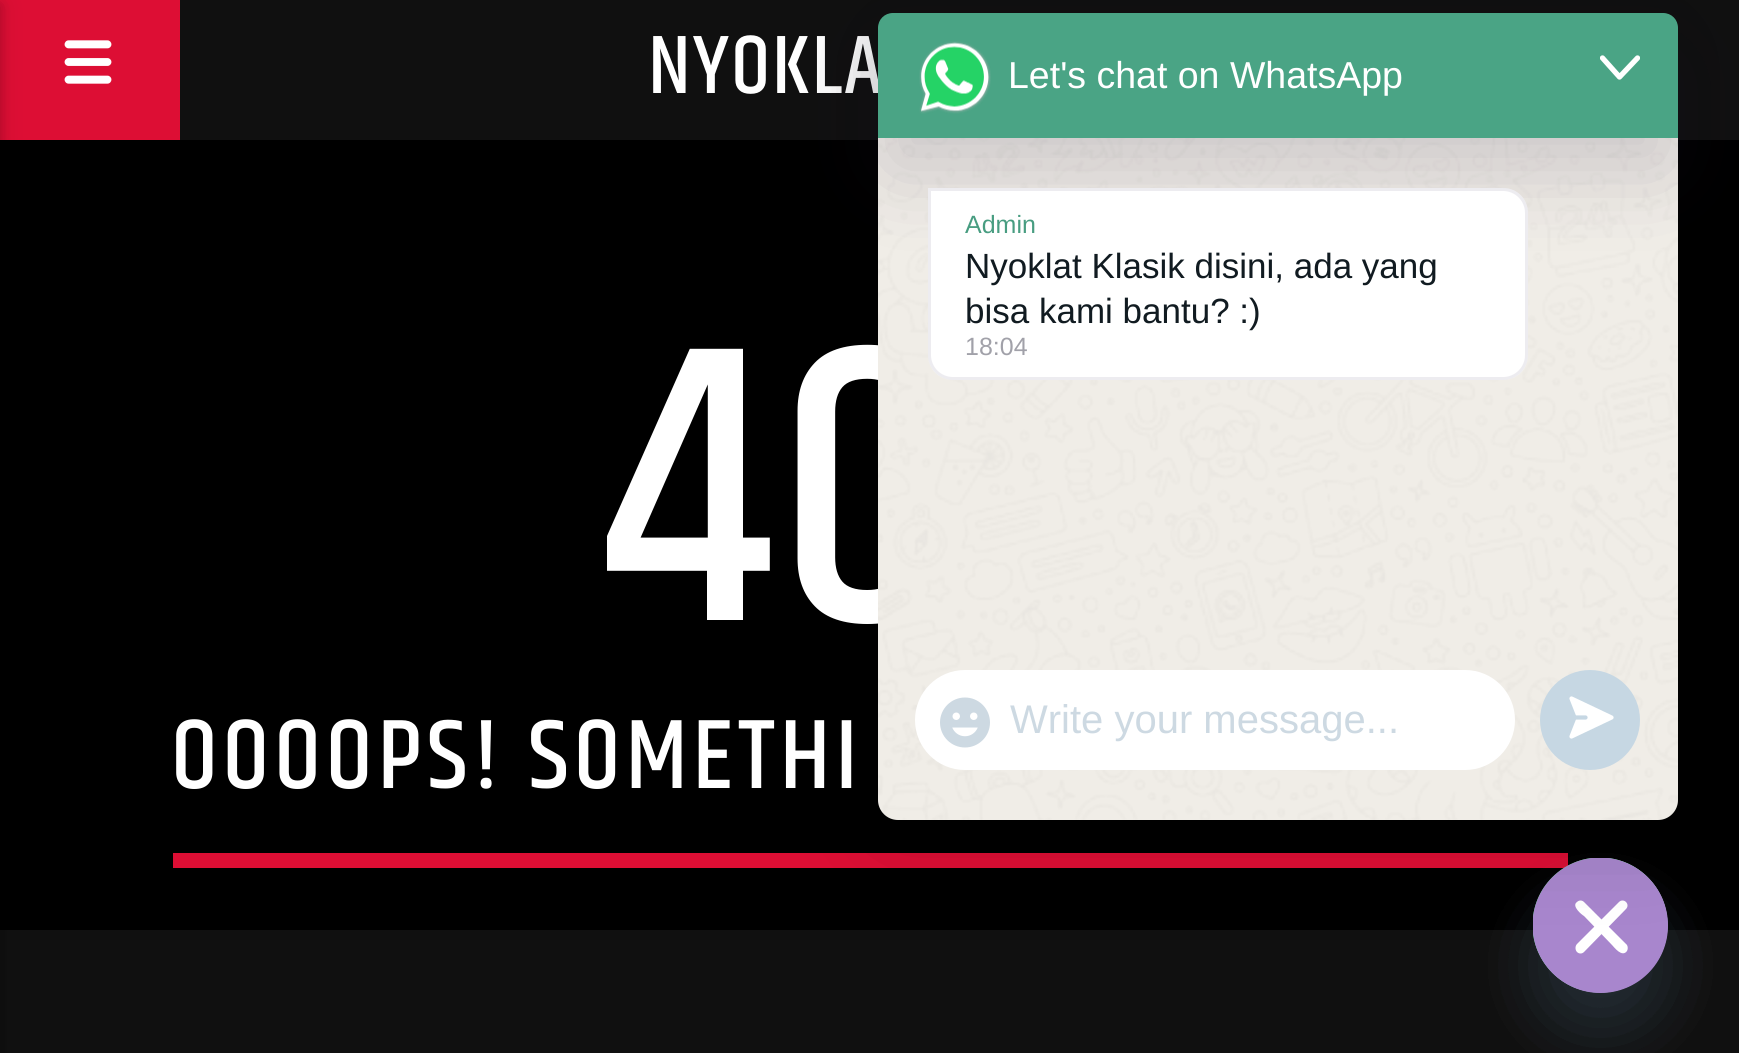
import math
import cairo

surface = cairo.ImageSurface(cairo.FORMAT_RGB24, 1739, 1053)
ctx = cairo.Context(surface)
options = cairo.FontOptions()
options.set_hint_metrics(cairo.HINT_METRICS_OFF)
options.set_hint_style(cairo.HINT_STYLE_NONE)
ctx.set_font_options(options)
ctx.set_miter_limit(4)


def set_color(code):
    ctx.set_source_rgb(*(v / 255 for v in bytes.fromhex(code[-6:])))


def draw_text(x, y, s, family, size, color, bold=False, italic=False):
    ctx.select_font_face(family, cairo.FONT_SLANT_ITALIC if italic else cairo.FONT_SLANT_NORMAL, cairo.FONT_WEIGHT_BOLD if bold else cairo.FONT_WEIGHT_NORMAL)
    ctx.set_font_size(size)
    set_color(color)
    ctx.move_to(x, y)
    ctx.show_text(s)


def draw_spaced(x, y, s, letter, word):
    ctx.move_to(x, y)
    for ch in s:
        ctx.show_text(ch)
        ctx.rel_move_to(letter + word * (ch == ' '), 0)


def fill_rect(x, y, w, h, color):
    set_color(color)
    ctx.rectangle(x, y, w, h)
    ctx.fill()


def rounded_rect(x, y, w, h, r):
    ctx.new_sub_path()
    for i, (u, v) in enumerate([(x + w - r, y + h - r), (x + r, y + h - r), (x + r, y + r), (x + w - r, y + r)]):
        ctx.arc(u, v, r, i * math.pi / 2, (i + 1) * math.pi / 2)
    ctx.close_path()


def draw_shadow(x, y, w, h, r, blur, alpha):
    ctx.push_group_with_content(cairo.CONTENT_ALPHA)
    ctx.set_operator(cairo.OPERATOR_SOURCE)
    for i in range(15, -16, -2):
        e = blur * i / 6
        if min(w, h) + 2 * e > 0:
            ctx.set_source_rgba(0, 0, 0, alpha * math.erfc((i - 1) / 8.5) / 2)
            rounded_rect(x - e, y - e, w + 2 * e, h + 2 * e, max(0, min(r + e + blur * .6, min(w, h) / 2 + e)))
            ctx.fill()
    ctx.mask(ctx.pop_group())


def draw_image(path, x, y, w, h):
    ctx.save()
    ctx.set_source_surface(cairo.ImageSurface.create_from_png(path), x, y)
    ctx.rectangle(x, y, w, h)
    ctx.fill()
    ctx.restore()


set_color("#000000")
ctx.paint()
fill_rect(0, 0, 180, 140, "#dd0e34")
fill_rect(0, 930, 1739, 123, "#101010")
set_color("#000000")
draw_shadow(-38, 5, 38, 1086, 0, 12.5, 0.12)
draw_shadow(-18, 5, 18, 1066, 0, 6, 0.16)
fill_rect(180, 0, 1559, 140, "#101010")
draw_image("assets/img1.png", 64, 40, 48, 44)
ctx.select_font_face("Khand Medium")
ctx.set_font_size(84)
set_color("#ffffff")
draw_spaced(648, 93, "NYOKLA", 2, 0)
fill_rect(173, 853, 1395, 15, "#dd0e34")
set_color("#49687e")
draw_shadow(1533, 898, 135, 135, 67.5, 30, 0.16)
draw_image("assets/img5.png", 1533, 858, 135, 135)
draw_shadow(1533, 898, 135, 135, 67.5, 30, 0.16)
set_color("#a886cd")
ctx.arc(1600.5, 925.5, 67.5, 0, 2 * math.pi)
ctx.fill()
ctx.save()
ctx.rectangle(1533, 858, 135, 135)
ctx.clip()
ctx.arc(1600, 925, 67.5, 0, 2 * math.pi)
ctx.fill()
ctx.restore()
set_color("#ffffff")
ctx.new_path()
ctx.move_to(1584, 902)
ctx.line_to(1627, 945)
ctx.curve_to(1628, 947, 1628, 949, 1627, 951)
ctx.curve_to(1622, 958, 1614, 947, 1612, 945)
ctx.line_to(1584, 916)
ctx.curve_to(1582, 915, 1571, 906, 1577, 902)
ctx.curve_to(1579, 900, 1582, 900, 1584, 902)
ctx.close_path()
ctx.fill()
ctx.new_path()
ctx.move_to(1626, 909)
ctx.line_to(1584, 952)
ctx.curve_to(1582, 954, 1579, 954, 1577, 952)
ctx.curve_to(1575, 950, 1575, 946, 1577, 944)
ctx.line_to(1619, 902)
ctx.curve_to(1621, 900, 1624, 900, 1626, 902)
ctx.curve_to(1628, 904, 1628, 907, 1626, 909)
ctx.close_path()
ctx.fill()
ctx.save()
ctx.set_fill_rule(cairo.FILL_RULE_EVEN_ODD)
ctx.new_path()
ctx.move_to(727, 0)
ctx.line_to(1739, 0)
ctx.line_to(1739, 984)
ctx.line_to(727, 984)
ctx.close_path()
ctx.move_to(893, 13)
ctx.line_to(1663, 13)
ctx.curve_to(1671.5, 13, 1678, 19.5, 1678, 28)
ctx.line_to(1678, 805)
ctx.curve_to(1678, 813.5, 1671.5, 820, 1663, 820)
ctx.line_to(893, 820)
ctx.curve_to(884.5, 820, 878, 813.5, 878, 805)
ctx.line_to(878, 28)
ctx.curve_to(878, 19.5, 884.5, 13, 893, 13)
ctx.close_path()
ctx.clip()
set_color("#000000")
draw_shadow(878, 25, 800, 808, 15, 50, 0.16)
ctx.restore()
ctx.set_font_size(400)
draw_spaced(603, 620, "40", 5, 0)
set_color("#f0ede7")
rounded_rect(878, 13, 800, 807, 20)
ctx.fill()
draw_image("assets/img3.png", 878, 138, 800, 682)
set_color("#1a0e35")
draw_shadow(878, 53, 800, 125, 15, 40, 0.16)
set_color("#4aa485")
ctx.new_path()
ctx.move_to(893, 13)
ctx.line_to(1663, 13)
ctx.curve_to(1671.5, 13, 1678, 19.5, 1678, 28)
ctx.line_to(1678, 138)
ctx.line_to(878, 138)
ctx.line_to(878, 28)
ctx.curve_to(878, 19.5, 884.5, 13, 893, 13)
ctx.close_path()
ctx.fill()
draw_image("assets/img2.png", 919, 41, 72, 73)
draw_text(1008, 88, "Let's chat on WhatsApp", "Liberation Sans", 37.5, "#ffffff")
ctx.save()
ctx.rectangle(1600, 48, 40, 40)
ctx.clip()
ctx.new_path()
ctx.move_to(1602.5, 58)
ctx.line_to(1619.5, 77)
ctx.line_to(1637.5, 58)
ctx.set_line_width(5.3)
ctx.set_line_cap(cairo.LINE_CAP_ROUND)
ctx.set_line_join(cairo.LINE_JOIN_ROUND)
ctx.stroke()
ctx.restore()
ctx.new_path()
ctx.move_to(928, 188)
ctx.line_to(1503, 188)
ctx.curve_to(1517, 188, 1528, 199, 1528, 213)
ctx.line_to(1528, 355)
ctx.curve_to(1528, 369, 1517, 380, 1503, 380)
ctx.line_to(953, 380)
ctx.curve_to(939, 380, 928, 369, 928, 355)
ctx.close_path()
ctx.fill()
ctx.new_path()
ctx.move_to(929.5, 189.5)
ctx.line_to(1503, 189.5)
ctx.curve_to(1516, 189.5, 1526.5, 200, 1526.5, 213)
ctx.line_to(1526.5, 355)
ctx.curve_to(1526.5, 368, 1516, 378.5, 1503, 378.5)
ctx.line_to(953, 378.5)
ctx.curve_to(940, 378.5, 929.5, 368, 929.5, 355)
ctx.close_path()
ctx.set_source_rgba(0.133, 0.067, 0.278, 0.08)
ctx.set_line_width(3)
ctx.stroke()
draw_text(965, 233, "Admin", "Liberation Sans", 25, "#489d81")
draw_text(965, 278, "Nyoklat Klasik disini, ada yang", "Liberation Sans", 35, "#111b21")
draw_text(965, 323, "bisa kami bantu? :)", "Liberation Sans", 35, "#111b21")
draw_text(965, 355, "18:04", "Liberation Sans", 25, "#a1a1a9")
set_color("#ffffff")
rounded_rect(915, 670, 600, 100, 50)
ctx.fill()
draw_image("assets/img4.png", 940, 697, 50, 51)
draw_text(1010, 733, "Write your message...", "Liberation Sans", 40, "#cdd9e2")
set_color("#c6d7e3")
ctx.new_path()
ctx.arc(1590, 720, 50, 0, 2 * math.pi)
ctx.fill()
set_color("#ffffff")
ctx.new_path()
ctx.move_to(1611.5, 717.5)
ctx.line_to(1571.5, 736.5)
ctx.line_to(1579, 717.5)
ctx.line_to(1571.5, 698.5)
ctx.close_path()
ctx.fill_preserve()
ctx.set_line_width(4.2)
ctx.set_line_cap(cairo.LINE_CAP_ROUND)
ctx.set_line_join(cairo.LINE_JOIN_ROUND)
ctx.stroke()
ctx.new_path()
ctx.move_to(1585.5, 717.5)
ctx.line_to(1572.5, 717.5)
set_color("#c6d7e3")
ctx.stroke()
ctx.select_font_face("Khand Medium")
ctx.set_font_size(100)
set_color("#ffffff")
draw_spaced(171, 788, "OOOOPS! SOMETHI", 5, 0)
surface.write_to_png("output.png")
